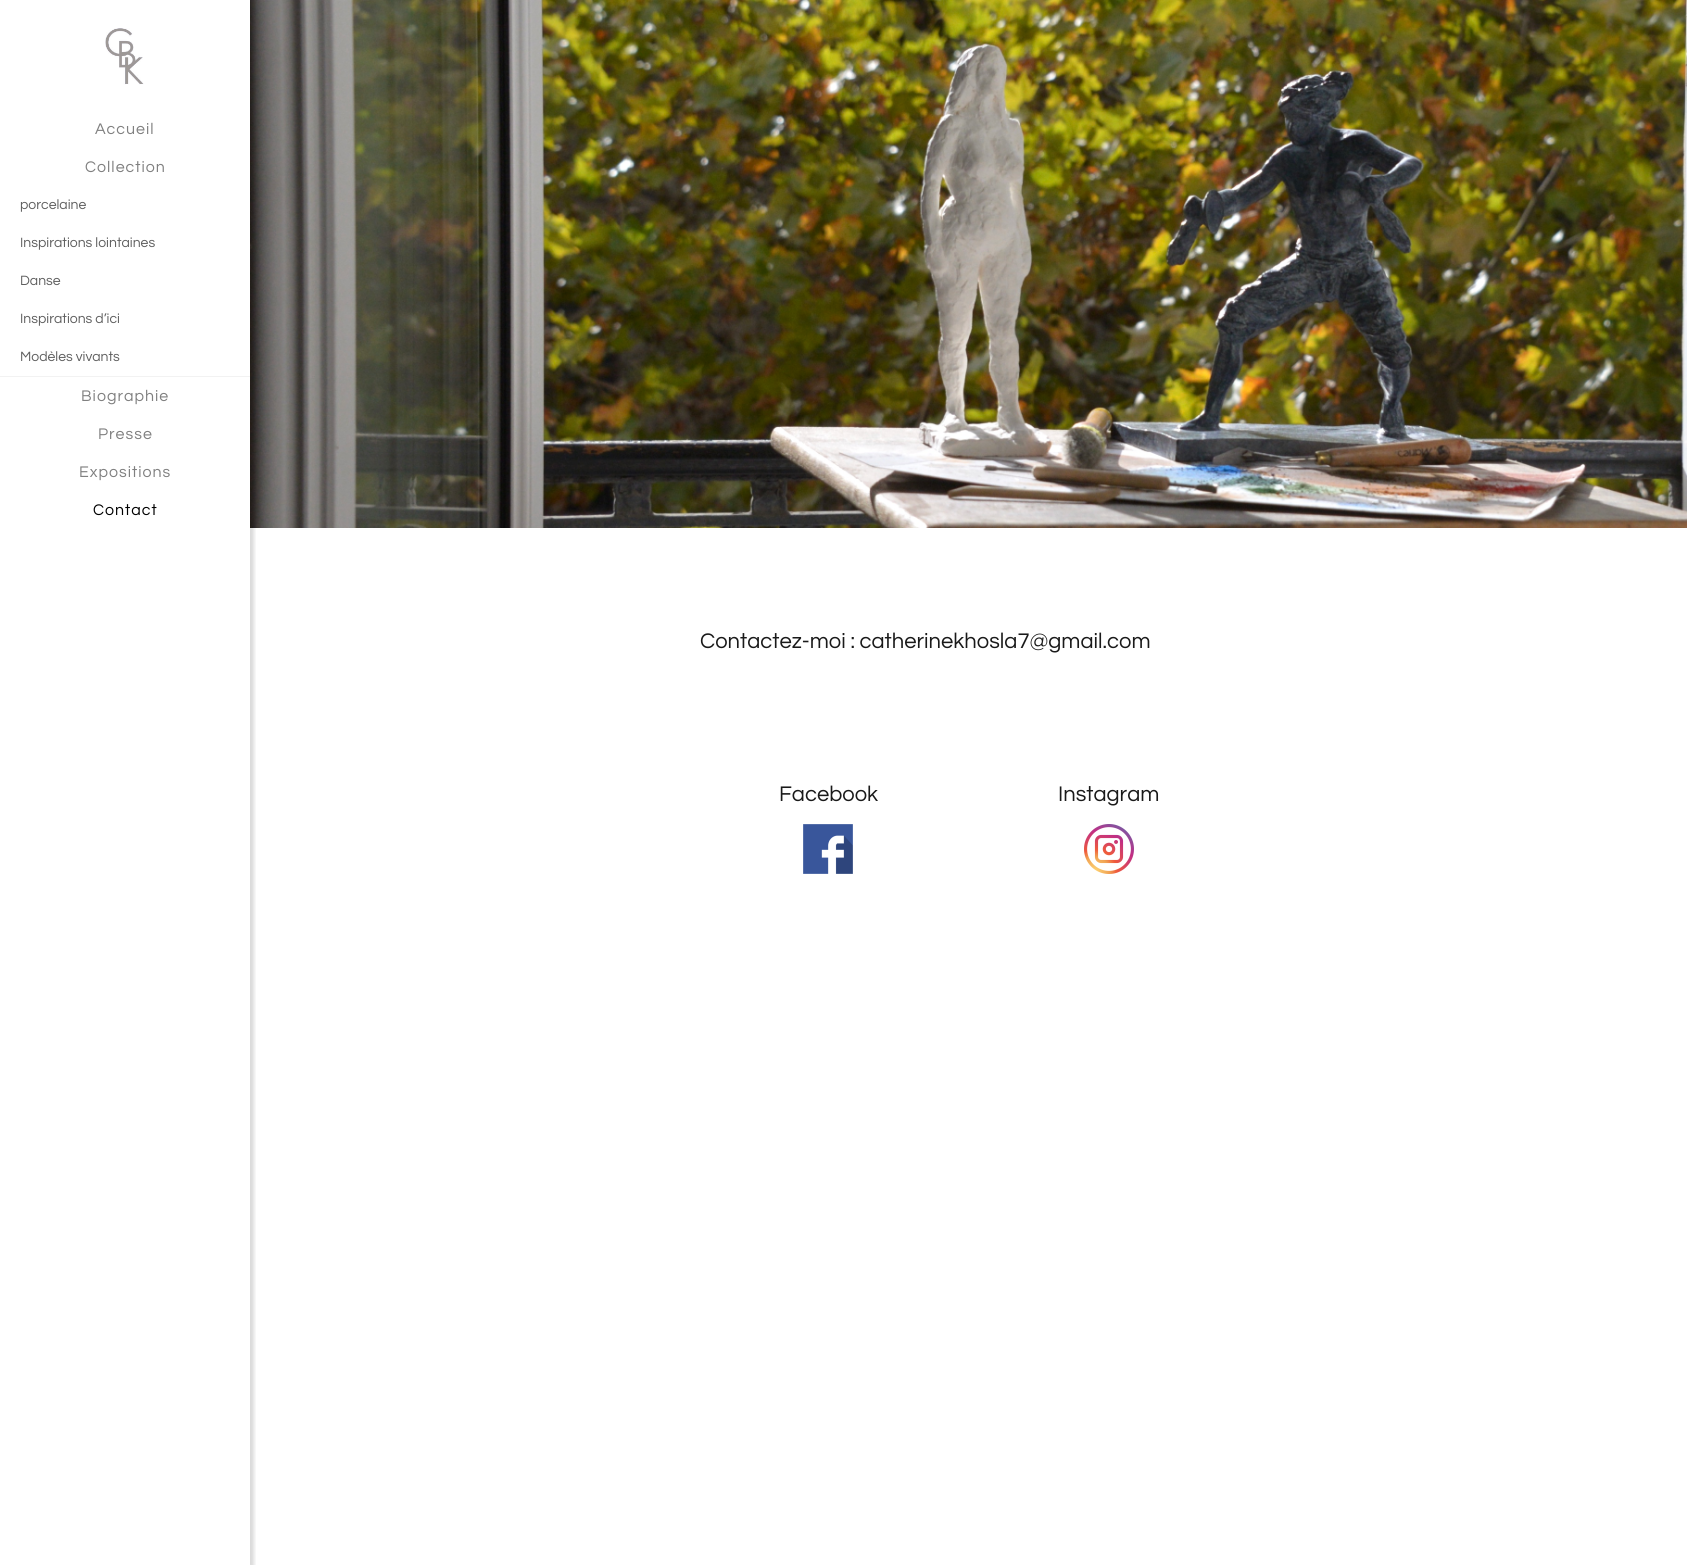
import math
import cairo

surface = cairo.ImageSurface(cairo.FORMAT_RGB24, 1687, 1565)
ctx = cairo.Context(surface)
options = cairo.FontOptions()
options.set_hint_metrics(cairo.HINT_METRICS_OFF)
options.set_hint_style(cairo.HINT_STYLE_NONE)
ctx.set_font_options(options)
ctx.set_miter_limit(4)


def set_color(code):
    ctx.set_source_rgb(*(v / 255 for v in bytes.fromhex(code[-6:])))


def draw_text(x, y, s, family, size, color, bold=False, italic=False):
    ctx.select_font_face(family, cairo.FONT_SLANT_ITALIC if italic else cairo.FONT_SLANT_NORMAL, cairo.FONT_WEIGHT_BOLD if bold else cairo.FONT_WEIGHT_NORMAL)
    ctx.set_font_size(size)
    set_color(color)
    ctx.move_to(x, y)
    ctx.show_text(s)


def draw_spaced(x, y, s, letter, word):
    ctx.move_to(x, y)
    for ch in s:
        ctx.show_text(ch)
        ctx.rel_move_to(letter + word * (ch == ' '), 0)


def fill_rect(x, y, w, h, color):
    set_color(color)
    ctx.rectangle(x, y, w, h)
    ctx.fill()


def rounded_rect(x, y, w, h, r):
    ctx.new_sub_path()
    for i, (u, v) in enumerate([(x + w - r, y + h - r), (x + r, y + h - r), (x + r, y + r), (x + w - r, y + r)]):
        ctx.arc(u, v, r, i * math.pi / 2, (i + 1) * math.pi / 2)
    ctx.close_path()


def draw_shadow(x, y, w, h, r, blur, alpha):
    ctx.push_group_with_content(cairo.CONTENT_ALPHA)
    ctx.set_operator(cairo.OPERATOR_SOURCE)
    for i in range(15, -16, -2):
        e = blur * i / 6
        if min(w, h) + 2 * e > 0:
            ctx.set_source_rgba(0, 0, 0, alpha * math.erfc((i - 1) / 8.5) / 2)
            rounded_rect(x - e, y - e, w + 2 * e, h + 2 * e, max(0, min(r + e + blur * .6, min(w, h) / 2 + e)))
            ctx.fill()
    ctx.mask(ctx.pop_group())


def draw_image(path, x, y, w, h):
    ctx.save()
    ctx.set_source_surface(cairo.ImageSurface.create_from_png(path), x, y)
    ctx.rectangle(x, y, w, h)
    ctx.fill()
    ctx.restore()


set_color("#ffffff")
ctx.paint()
draw_image("assets/img2.png", 250, 0, 1437, 528)
ctx.save()
ctx.rectangle(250, 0, 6, 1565)
ctx.clip()
set_color("#000000")
draw_shadow(0, -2, 254, 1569, 0, 2, 0.15)
ctx.restore()
draw_image("assets/img1.png", 105, 28, 39, 57)
ctx.select_font_face("Questrial")
ctx.set_font_size(16)
set_color("#808080")
draw_spaced(95, 134, "Accueil", 1, 0)
draw_spaced(85, 172, "Collection", 1, 0)
draw_text(20, 209, "porcelaine", "Questrial", 14, "#5f5f5f")
draw_text(20, 247, "Inspirations lointaines", "Questrial", 14, "#5f5f5f")
draw_text(20, 285, "Danse", "Questrial", 14, "#5f5f5f")
draw_text(20, 323, "Inspirations d’ici", "Questrial", 14, "#5f5f5f")
fill_rect(0, 376, 250, 1, "#f2f2f2")
draw_text(20, 361, "Modèles vivants", "Questrial", 14, "#5f5f5f")
ctx.set_font_size(16)
set_color("#808080")
draw_spaced(81, 401, "Biographie", 1, 0)
draw_spaced(98, 439, "Presse", 1, 0)
draw_spaced(79, 477, "Expositions", 1, 0)
set_color("#000000")
draw_spaced(93, 515, "Contact", 1, 0)
draw_text(700, 648, "Contactez-moi : catherinekhosla7@gmail.com", "Questrial", 22, "#1a1a1a")
draw_text(779, 801, "Facebook", "Questrial", 22, "#1a1a1a")
draw_image("assets/img3.png", 803, 824, 50, 50)
draw_text(1058, 801, "Instagram", "Questrial", 22, "#1a1a1a")
draw_image("assets/img4.png", 1084, 824, 50, 50)
surface.write_to_png("output.png")
